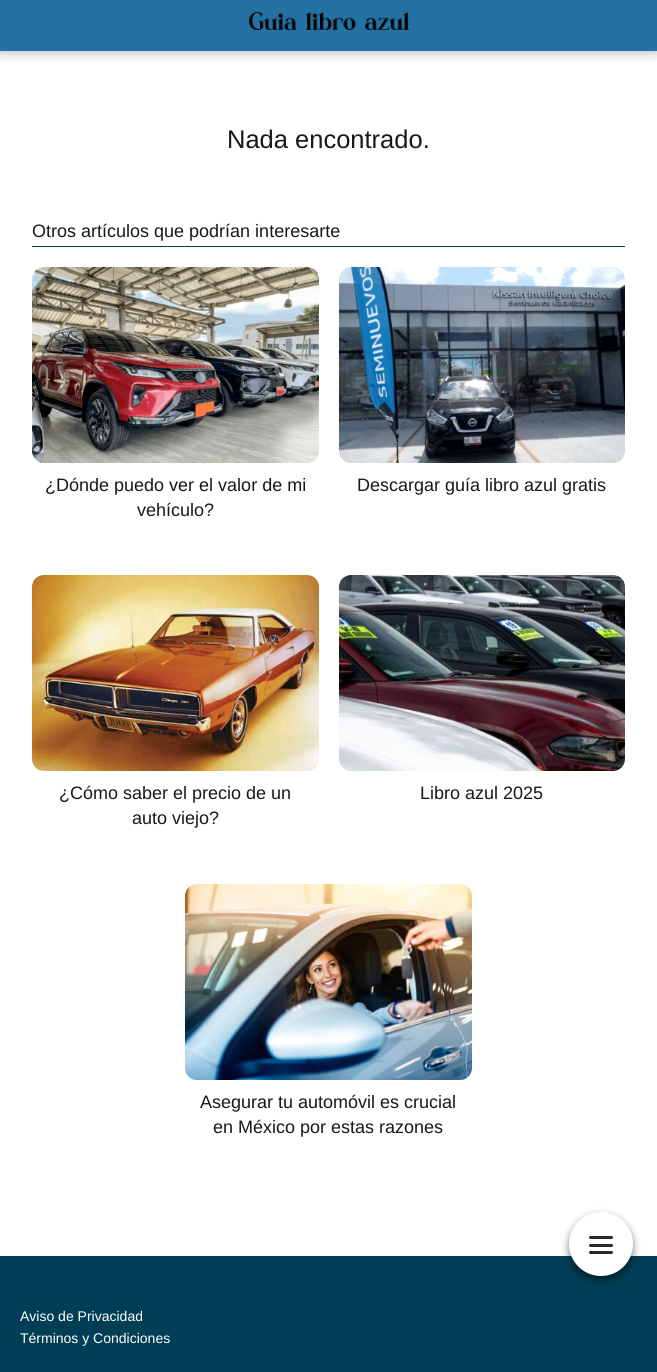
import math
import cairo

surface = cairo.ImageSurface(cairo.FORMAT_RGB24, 657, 1372)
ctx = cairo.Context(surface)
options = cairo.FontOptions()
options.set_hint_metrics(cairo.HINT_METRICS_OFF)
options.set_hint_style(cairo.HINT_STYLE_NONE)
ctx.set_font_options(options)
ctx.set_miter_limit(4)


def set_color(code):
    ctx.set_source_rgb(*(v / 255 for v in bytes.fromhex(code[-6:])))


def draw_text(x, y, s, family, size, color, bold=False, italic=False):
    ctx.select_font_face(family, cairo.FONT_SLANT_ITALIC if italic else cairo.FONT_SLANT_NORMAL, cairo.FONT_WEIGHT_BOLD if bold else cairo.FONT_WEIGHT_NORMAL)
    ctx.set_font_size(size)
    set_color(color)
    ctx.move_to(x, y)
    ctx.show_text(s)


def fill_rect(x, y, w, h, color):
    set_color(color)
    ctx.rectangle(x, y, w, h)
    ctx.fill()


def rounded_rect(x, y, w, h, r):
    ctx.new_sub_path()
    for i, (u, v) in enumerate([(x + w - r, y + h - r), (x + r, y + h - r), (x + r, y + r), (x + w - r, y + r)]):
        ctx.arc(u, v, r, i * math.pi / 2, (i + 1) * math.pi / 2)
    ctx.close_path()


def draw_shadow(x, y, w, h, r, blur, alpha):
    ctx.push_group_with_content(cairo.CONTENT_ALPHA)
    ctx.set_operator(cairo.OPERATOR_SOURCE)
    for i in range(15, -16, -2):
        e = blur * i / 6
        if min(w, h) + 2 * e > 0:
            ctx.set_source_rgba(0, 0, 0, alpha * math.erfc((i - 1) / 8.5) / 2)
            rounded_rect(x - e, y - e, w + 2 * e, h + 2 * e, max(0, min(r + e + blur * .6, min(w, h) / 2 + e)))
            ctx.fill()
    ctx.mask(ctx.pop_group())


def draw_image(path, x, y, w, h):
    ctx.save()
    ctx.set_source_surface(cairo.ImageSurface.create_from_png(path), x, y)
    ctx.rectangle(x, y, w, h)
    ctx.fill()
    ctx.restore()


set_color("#ffffff")
ctx.paint()
set_color("#000000")
draw_shadow(0, -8, 657, 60, 0, 6, 0.3)
fill_rect(0, 0, 657, 51, "#2471a3")
draw_image("assets/img1.png", 249, 12, 160, 18)
draw_text(227, 148, "Nada encontrado.", "Liberation Sans", 25.5, "#181818")
fill_rect(32, 246, 593, 1, "#003e55")
draw_text(32, 237, "Otros artículos que podrían interesarte", "Liberation Sans", 18, "#181818")
draw_image("assets/img2.png", 32, 267, 287, 196)
draw_text(45, 491, "¿Dónde puedo ver el valor de mi", "Liberation Sans", 18, "#181818")
draw_text(137, 516, "vehículo?", "Liberation Sans", 18, "#181818")
draw_image("assets/img3.png", 339, 267, 286, 196)
draw_text(357, 491, "Descargar guía libro azul gratis", "Liberation Sans", 18, "#181818")
draw_image("assets/img4.png", 32, 575, 287, 196)
draw_text(59, 799, "¿Cómo saber el precio de un", "Liberation Sans", 18, "#181818")
draw_text(132, 824, "auto viejo?", "Liberation Sans", 18, "#181818")
draw_image("assets/img5.png", 339, 575, 286, 196)
draw_text(420, 799, "Libro azul 2025", "Liberation Sans", 18, "#181818")
draw_image("assets/img6.png", 185, 884, 287, 196)
draw_text(200, 1108, "Asegurar tu automóvil es crucial", "Liberation Sans", 18, "#181818")
draw_text(213, 1133, "en México por estas razones", "Liberation Sans", 18, "#181818")
fill_rect(0, 1256, 657, 116, "#003e55")
set_color("#000000")
draw_shadow(569, 1216, 64, 64, 32, 4, 0.5)
set_color("#ffffff")
ctx.arc(601, 1244, 32, 0, 2 * math.pi)
ctx.fill()
set_color("#282828")
rounded_rect(589, 1236, 24, 3, 1.5)
ctx.fill()
rounded_rect(589, 1244, 24, 3, 1.5)
ctx.fill()
rounded_rect(589, 1251, 24, 3, 1.5)
ctx.fill()
draw_text(20, 1321, "Aviso de Privacidad", "Liberation Sans", 14, "#ffffff")
draw_text(20, 1343, "Términos y Condiciones", "Liberation Sans", 14, "#ffffff")
surface.write_to_png("output.png")
